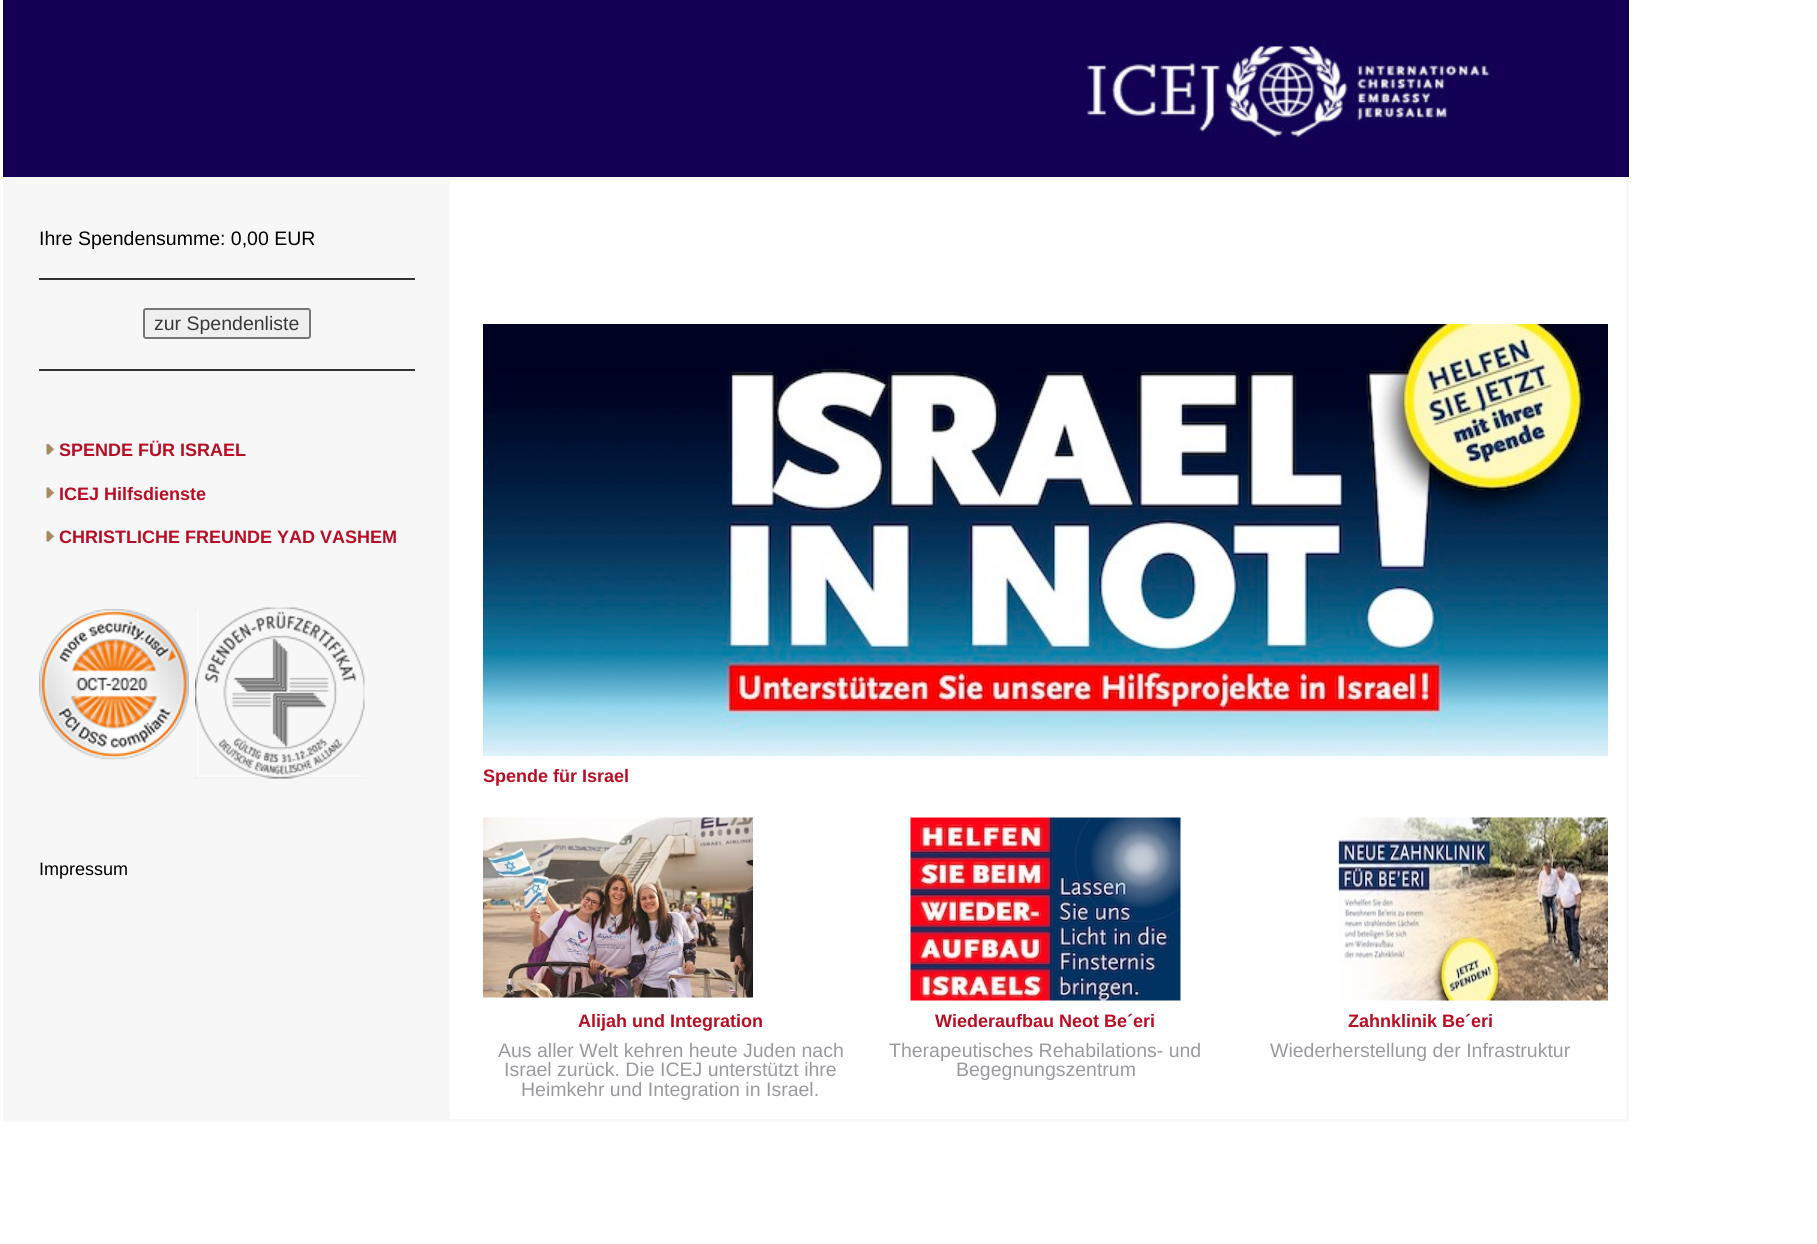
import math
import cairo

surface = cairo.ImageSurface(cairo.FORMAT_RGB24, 1817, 1244)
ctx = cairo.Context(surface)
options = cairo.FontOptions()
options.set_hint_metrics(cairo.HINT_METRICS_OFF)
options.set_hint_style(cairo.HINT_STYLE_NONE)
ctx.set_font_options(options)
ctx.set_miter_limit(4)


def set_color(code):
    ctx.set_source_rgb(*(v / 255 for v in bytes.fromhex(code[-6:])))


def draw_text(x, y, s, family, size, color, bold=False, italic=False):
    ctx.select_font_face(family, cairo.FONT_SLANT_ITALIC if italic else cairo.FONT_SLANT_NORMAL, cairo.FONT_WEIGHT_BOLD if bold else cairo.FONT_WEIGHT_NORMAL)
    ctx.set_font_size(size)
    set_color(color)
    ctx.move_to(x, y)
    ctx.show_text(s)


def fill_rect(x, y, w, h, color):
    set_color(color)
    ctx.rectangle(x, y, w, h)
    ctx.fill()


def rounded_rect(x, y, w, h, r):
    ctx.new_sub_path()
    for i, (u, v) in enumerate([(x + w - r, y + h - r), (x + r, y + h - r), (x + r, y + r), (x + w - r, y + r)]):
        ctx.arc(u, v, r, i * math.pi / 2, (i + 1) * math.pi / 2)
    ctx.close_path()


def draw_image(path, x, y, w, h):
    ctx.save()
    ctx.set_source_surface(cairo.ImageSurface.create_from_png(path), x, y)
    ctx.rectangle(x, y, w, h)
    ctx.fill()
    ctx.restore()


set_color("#ffffff")
ctx.paint()
fill_rect(3, 0, 1626, 177, "#130054")
draw_image("assets/img1.png", 1086, 39, 408, 108)
fill_rect(3, 177, 1626, 945, "#f7f7f7")
draw_text(39, 245, "Ihre Spendensumme: 0,00 EUR", "Liberation Sans", 19.5, "#000000")
fill_rect(39, 278, 376, 2, "#333333")
set_color("#efefef")
rounded_rect(144, 309, 166, 29, 2)
ctx.fill_preserve()
set_color("#767676")
ctx.stroke()
draw_text(154, 330, "zur Spendenliste", "Liberation Sans", 19.5, "#393939")
fill_rect(39, 369, 376, 2, "#333333")
draw_image("assets/img2.png", 46, 443, 8, 12)
draw_text(59, 456, "SPENDE FÜR ISRAEL", "Liberation Sans", 18, "#b80e25", bold=True)
draw_image("assets/img3.png", 46, 487, 8, 12)
draw_text(59, 500, "ICEJ Hilfsdienste", "Liberation Sans", 18, "#b80e25", bold=True)
draw_image("assets/img2.png", 46, 530, 8, 12)
draw_text(59, 543, "CHRISTLICHE FREUNDE YAD VASHEM", "Liberation Sans", 18, "#b80e25", bold=True)
draw_image("assets/img4.png", 39, 609, 150, 151)
draw_image("assets/img5.png", 195, 607, 170, 172)
draw_text(39, 875, "Impressum", "Liberation Sans", 18, "#000000")
fill_rect(450, 180, 1176, 939, "#ffffff")
draw_image("assets/img6.png", 483, 324, 1125, 432)
draw_text(483, 782, "Spende für Israel", "Liberation Sans", 18, "#b80e25", bold=True)
draw_image("assets/img7.png", 483, 817, 270, 181)
draw_image("assets/img8.png", 910, 817, 271, 184)
draw_image("assets/img9.png", 1338, 817, 270, 184)
draw_text(578, 1027, "Alijah und Integration", "Liberation Sans", 18, "#b80e25", bold=True)
draw_text(935, 1027, "Wiederaufbau Neot Be´eri", "Liberation Sans", 18, "#b80e25", bold=True)
draw_text(1348, 1027, "Zahnklinik Be´eri", "Liberation Sans", 18, "#b80e25", bold=True)
draw_text(498, 1057, "Aus aller Welt kehren heute Juden nach", "Liberation Sans", 19.5, "#999a9f")
draw_text(504, 1076, "Israel zurück. Die ICEJ unterstützt ihre", "Liberation Sans", 19.5, "#999a9f")
draw_text(521, 1096, "Heimkehr und Integration in Israel.", "Liberation Sans", 19.5, "#999a9f")
draw_text(889, 1057, "Therapeutisches Rehabilations- und", "Liberation Sans", 19.5, "#999a9f")
draw_text(956, 1076, "Begegnungszentrum", "Liberation Sans", 19.5, "#999a9f")
draw_text(1270, 1057, "Wiederherstellung der Infrastruktur", "Liberation Sans", 19.5, "#999a9f")
surface.write_to_png("output.png")
